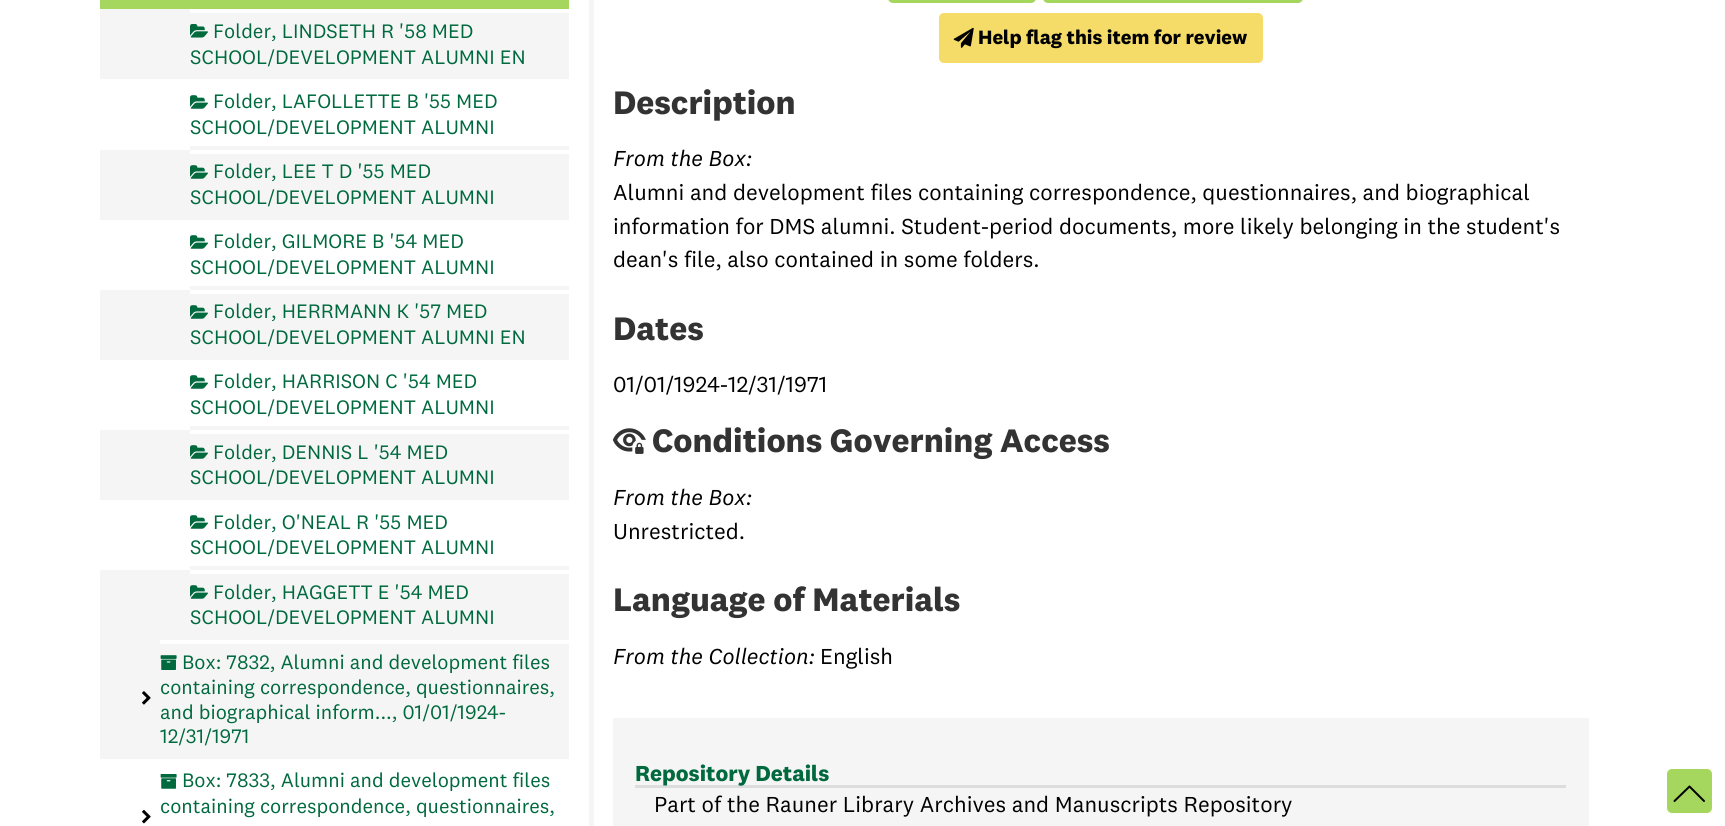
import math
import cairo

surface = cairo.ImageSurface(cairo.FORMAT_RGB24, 1725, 826)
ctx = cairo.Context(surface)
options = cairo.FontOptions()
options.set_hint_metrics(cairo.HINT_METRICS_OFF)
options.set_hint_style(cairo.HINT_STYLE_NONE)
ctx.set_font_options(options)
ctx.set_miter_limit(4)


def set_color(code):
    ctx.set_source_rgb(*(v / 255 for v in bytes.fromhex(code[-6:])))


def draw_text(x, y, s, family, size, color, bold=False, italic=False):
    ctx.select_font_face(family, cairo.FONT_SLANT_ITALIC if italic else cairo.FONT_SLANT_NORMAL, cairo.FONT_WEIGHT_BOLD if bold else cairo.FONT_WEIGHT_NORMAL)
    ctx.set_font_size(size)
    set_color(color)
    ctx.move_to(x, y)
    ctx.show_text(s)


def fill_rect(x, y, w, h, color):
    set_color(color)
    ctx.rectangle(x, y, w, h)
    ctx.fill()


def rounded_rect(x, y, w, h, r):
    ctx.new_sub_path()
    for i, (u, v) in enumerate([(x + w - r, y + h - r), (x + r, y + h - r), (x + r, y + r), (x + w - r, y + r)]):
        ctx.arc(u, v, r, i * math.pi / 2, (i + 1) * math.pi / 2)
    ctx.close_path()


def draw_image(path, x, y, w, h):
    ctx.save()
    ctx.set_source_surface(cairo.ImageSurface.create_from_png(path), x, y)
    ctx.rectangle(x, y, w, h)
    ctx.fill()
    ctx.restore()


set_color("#ffffff")
ctx.paint()
fill_rect(100, 0, 469, 9, "#a5d75f")
fill_rect(190, 13, 379, 66, "#f5f5f5")
fill_rect(100, 9, 90, 70, "#f5f5f5")
draw_image("assets/img1.png", 190, 24, 18, 14)
draw_text(213, 38, "Folder, LINDSETH R '58 MED", "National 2", 20.25, "#00693e")
draw_text(190, 64, "SCHOOL/DEVELOPMENT ALUMNI EN", "National 2", 20.25, "#00693e")
fill_rect(190, 146, 379, 4, "#f5f5f5")
draw_image("assets/img2.png", 190, 95, 18, 14)
draw_text(213, 108, "Folder, LAFOLLETTE B '55 MED", "National 2", 20.25, "#00693e")
draw_text(190, 134, "SCHOOL/DEVELOPMENT ALUMNI", "National 2", 20.25, "#00693e")
fill_rect(190, 154, 379, 66, "#f5f5f5")
fill_rect(100, 150, 90, 70, "#f5f5f5")
draw_image("assets/img3.png", 190, 165, 18, 14)
draw_text(213, 178, "Folder, LEE T D '55 MED", "National 2", 20.25, "#00693e")
draw_text(190, 204, "SCHOOL/DEVELOPMENT ALUMNI", "National 2", 20.25, "#00693e")
fill_rect(190, 286, 379, 4, "#f5f5f5")
draw_image("assets/img2.png", 190, 235, 18, 14)
draw_text(213, 248, "Folder, GILMORE B '54 MED", "National 2", 20.25, "#00693e")
draw_text(190, 274, "SCHOOL/DEVELOPMENT ALUMNI", "National 2", 20.25, "#00693e")
fill_rect(190, 294, 379, 66, "#f5f5f5")
fill_rect(100, 290, 90, 70, "#f5f5f5")
draw_image("assets/img3.png", 190, 305, 18, 14)
draw_text(213, 318, "Folder, HERRMANN K '57 MED", "National 2", 20.25, "#00693e")
draw_text(190, 344, "SCHOOL/DEVELOPMENT ALUMNI EN", "National 2", 20.25, "#00693e")
fill_rect(190, 426, 379, 4, "#f5f5f5")
draw_image("assets/img2.png", 190, 375, 18, 14)
draw_text(213, 388, "Folder, HARRISON C '54 MED", "National 2", 20.25, "#00693e")
draw_text(190, 414, "SCHOOL/DEVELOPMENT ALUMNI", "National 2", 20.25, "#00693e")
fill_rect(190, 434, 379, 66, "#f5f5f5")
fill_rect(100, 430, 90, 70, "#f5f5f5")
draw_image("assets/img3.png", 190, 445, 18, 14)
draw_text(213, 459, "Folder, DENNIS L '54 MED", "National 2", 20.25, "#00693e")
draw_text(190, 484, "SCHOOL/DEVELOPMENT ALUMNI", "National 2", 20.25, "#00693e")
fill_rect(190, 566, 379, 4, "#f5f5f5")
draw_image("assets/img2.png", 190, 515, 18, 14)
draw_text(213, 529, "Folder, O'NEAL R '55 MED", "National 2", 20.25, "#00693e")
draw_text(190, 554, "SCHOOL/DEVELOPMENT ALUMNI", "National 2", 20.25, "#00693e")
fill_rect(190, 574, 379, 66, "#f5f5f5")
fill_rect(100, 570, 90, 70, "#f5f5f5")
draw_image("assets/img3.png", 190, 585, 18, 14)
draw_text(213, 599, "Folder, HAGGETT E '54 MED", "National 2", 20.25, "#00693e")
draw_text(190, 624, "SCHOOL/DEVELOPMENT ALUMNI", "National 2", 20.25, "#00693e")
fill_rect(160, 644, 409, 115, "#f5f5f5")
fill_rect(100, 640, 60, 119, "#f5f5f5")
draw_image("assets/img4.png", 142, 691, 9, 14)
draw_image("assets/img5.png", 160, 655, 17, 15)
draw_text(182, 669, "Box: 7832, Alumni and development files", "National 2", 20.25, "#00693e")
draw_text(160, 694, "containing correspondence, questionnaires,", "National 2", 20.25, "#00693e")
draw_text(160, 719, "and biographical inform..., 01/01/1924-", "National 2", 20.25, "#00693e")
draw_text(160, 743, "12/31/1971", "National 2", 20.25, "#00693e")
draw_image("assets/img6.png", 142, 809, 9, 15)
draw_image("assets/img7.png", 160, 774, 17, 15)
draw_text(182, 787, "Box: 7833, Alumni and development files", "National 2", 20.25, "#00693e")
draw_text(160, 813, "containing correspondence, questionnaires,", "National 2", 20.25, "#00693e")
fill_rect(589, 0, 5, 826, "#f5f5f5")
set_color("#a5d75f")
rounded_rect(888, -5, 148, 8, 5)
ctx.fill()
rounded_rect(1043, -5, 260, 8, 5)
ctx.fill()
set_color("#f5dc69")
rounded_rect(939, 13, 324, 50, 5)
ctx.fill()
draw_image("assets/img8.png", 953, 27, 21, 21)
draw_text(978, 44, "Help flag this item for review", "National 2", 20, "#000000", bold=True)
draw_text(613, 114, "Description", "National 2", 33.75, "#333333", bold=True)
draw_text(613, 166, "From the Box:", "National 2", 22.5, "#000000", italic=True)
draw_text(613, 200, "Alumni and development files containing correspondence, questionnaires, and biographical", "National 2", 22.5, "#000000")
draw_text(613, 234, "information for DMS alumni. Student-period documents, more likely belonging in the student's", "National 2", 22.5, "#000000")
draw_text(613, 267, "dean's file, also contained in some folders.", "National 2", 22.5, "#000000")
draw_text(613, 340, "Dates", "National 2", 33.75, "#333333", bold=True)
draw_text(613, 392, "01/01/1924-12/31/1971", "National 2", 22.5, "#000000")
draw_image("assets/img9.png", 612, 428, 34, 26)
draw_text(652, 452, "Conditions Governing Access", "National 2", 33.75, "#333333", bold=True)
draw_text(613, 505, "From the Box:", "National 2", 22.5, "#000000", italic=True)
draw_text(613, 539, "Unrestricted.", "National 2", 22.5, "#000000")
draw_text(613, 611, "Language of Materials", "National 2", 33.75, "#333333", bold=True)
draw_text(613, 664, "From the Collection:", "National 2", 22.5, "#000000", italic=True)
draw_text(820, 664, "English", "National 2", 22.5, "#000000")
fill_rect(613, 718, 976, 108, "#f5f5f5")
fill_rect(635, 785, 931, 3, "#dddddd")
draw_text(635, 781, "Repository Details", "National 2", 22.5, "#00693e", bold=True)
draw_text(654, 812, "Part of the Rauner Library Archives and Manuscripts Repository", "National 2", 22.5, "#000000")
set_color("#a5d75f")
rounded_rect(1666.5, 768.5, 46, 45, 5.5)
ctx.fill_preserve()
set_color("#ffffff")
ctx.set_line_width(1)
ctx.stroke()
ctx.new_path()
ctx.move_to(1704, 801)
ctx.line_to(1689.5, 786.5)
ctx.line_to(1674.5, 801)
set_color("#000000")
ctx.set_line_width(2)
ctx.set_line_cap(cairo.LINE_CAP_ROUND)
ctx.set_line_join(cairo.LINE_JOIN_ROUND)
ctx.stroke()
surface.write_to_png("output.png")
